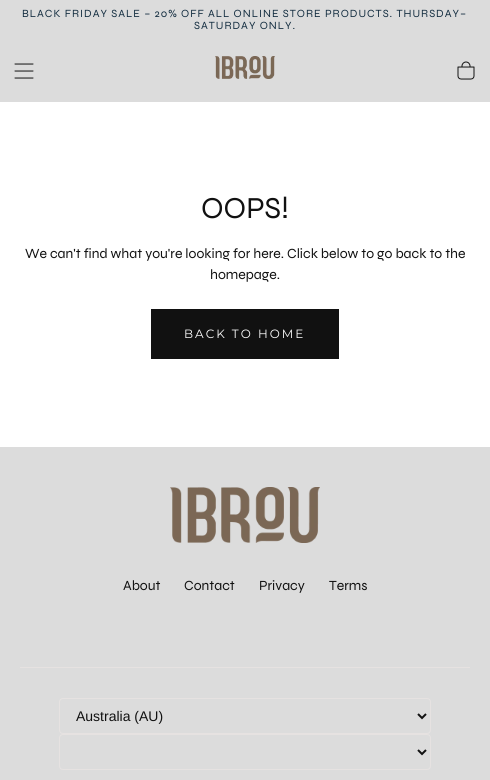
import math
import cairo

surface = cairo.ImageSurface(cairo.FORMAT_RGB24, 490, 780)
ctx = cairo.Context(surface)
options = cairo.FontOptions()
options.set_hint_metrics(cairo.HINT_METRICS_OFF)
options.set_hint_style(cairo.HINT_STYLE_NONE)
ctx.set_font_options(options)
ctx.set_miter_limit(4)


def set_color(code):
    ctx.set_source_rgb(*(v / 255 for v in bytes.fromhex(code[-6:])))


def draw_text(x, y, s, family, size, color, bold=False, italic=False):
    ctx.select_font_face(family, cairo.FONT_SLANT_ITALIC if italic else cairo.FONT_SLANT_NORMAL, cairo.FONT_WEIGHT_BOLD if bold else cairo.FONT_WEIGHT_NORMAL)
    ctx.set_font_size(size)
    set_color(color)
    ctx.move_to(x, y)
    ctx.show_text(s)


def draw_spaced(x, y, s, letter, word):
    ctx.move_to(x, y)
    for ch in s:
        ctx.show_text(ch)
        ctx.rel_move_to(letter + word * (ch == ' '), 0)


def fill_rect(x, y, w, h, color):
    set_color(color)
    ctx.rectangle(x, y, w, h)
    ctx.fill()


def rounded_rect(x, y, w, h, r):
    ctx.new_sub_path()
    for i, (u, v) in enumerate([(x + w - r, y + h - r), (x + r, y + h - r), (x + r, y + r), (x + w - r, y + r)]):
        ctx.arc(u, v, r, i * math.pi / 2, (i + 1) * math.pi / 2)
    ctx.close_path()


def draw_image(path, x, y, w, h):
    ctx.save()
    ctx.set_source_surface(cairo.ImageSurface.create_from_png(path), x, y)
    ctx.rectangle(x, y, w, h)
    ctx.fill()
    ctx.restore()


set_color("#ffffff")
ctx.paint()
fill_rect(0, 0, 490, 102, "#dcdcdc")
ctx.select_font_face("Syne")
ctx.set_font_size(11)
set_color("#132d40")
draw_spaced(22, 17, "BLACK FRIDAY SALE – 20% OFF ALL ONLINE STORE PRODUCTS. THURSDAY–", 1, 0)
draw_spaced(194, 29, "SATURDAY ONLY.", 1, 0)
draw_image("assets/img1.png", 14, 63, 20, 16)
draw_image("assets/img2.png", 215, 56, 60, 23)
draw_image("assets/img3.png", 457, 61, 18, 19)
draw_text(201, 218, "OOPS!", "Syne", 30.5, "#111111")
draw_text(25, 258, "We can't find what you're looking for here. Click below to go back to the", "Syne", 14, "#111111")
draw_text(210, 279, "homepage.", "Syne", 14, "#111111")
fill_rect(151, 309, 188, 50, "#111111")
ctx.select_font_face("Montserrat")
ctx.set_font_size(12)
set_color("#ffffff")
draw_spaced(184, 338, "BACK TO HOME", 2, 0)
fill_rect(0, 447, 490, 333, "#dcdcdc")
fill_rect(20, 667, 450, 1, "#e6e2e1")
draw_image("assets/img4.png", 170, 487, 150, 56)
draw_text(123, 590, "About", "Syne", 14, "#111111")
draw_text(184, 590, "Contact", "Syne", 14, "#111111")
draw_text(259, 590, "Privacy", "Syne", 14, "#111111")
draw_text(329, 590, "Terms", "Syne", 14, "#111111")
rounded_rect(59.5, 698.5, 371, 35, 3.5)
set_color("#e6e2e1")
ctx.set_line_width(1)
ctx.stroke()
ctx.new_path()
ctx.move_to(418, 714)
ctx.line_to(422, 718)
ctx.line_to(426, 714)
set_color("#111111")
ctx.set_line_width(2)
ctx.stroke()
draw_text(76, 721, "Australia (AU)", "Liberation Sans", 14, "#111111")
rounded_rect(59.5, 734.5, 371, 35, 3.5)
set_color("#e6e2e1")
ctx.set_line_width(1)
ctx.stroke()
ctx.new_path()
ctx.move_to(418, 750)
ctx.line_to(422, 754)
ctx.line_to(426, 750)
set_color("#111111")
ctx.set_line_width(2)
ctx.stroke()
surface.write_to_png("output.png")
